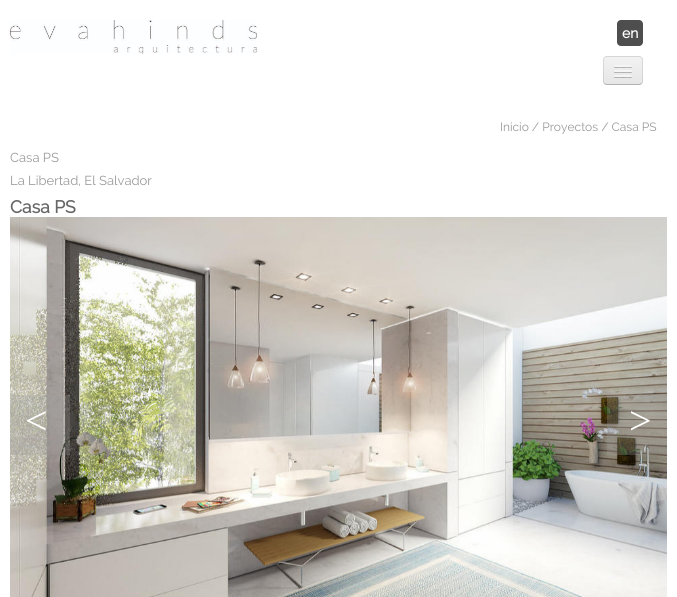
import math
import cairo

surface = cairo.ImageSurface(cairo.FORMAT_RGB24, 677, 597)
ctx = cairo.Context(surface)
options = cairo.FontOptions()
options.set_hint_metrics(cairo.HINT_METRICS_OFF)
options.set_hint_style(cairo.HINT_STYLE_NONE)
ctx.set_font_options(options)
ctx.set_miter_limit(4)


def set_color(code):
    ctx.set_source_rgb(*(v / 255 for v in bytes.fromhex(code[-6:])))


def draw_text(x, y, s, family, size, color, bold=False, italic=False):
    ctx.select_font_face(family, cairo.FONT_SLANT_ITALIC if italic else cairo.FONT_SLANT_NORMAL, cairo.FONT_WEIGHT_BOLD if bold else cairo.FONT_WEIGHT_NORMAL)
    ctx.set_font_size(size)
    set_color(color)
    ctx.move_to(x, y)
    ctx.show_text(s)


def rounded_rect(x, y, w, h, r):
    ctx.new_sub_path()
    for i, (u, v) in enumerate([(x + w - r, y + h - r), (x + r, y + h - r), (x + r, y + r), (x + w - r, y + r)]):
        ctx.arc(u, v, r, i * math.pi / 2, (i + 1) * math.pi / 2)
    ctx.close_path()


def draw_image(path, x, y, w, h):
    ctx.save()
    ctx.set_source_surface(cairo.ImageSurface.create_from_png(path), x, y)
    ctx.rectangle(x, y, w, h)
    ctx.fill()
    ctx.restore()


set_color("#ffffff")
ctx.paint()
draw_image("assets/img1.png", 10, 20, 248, 34)
set_color("#4e4e4e")
rounded_rect(617, 20, 26, 26, 4)
ctx.fill()
draw_text(622, 38, "en", "Raleway", 14, "#ffffff", bold=True)
set_color("#ededed")
rounded_rect(603, 56, 40, 29, 4)
ctx.fill()
ctx.save()
rounded_rect(603, 56, 40, 29, 4)
ctx.clip()
gradient = cairo.LinearGradient(623, 57, 623, 84)
gradient.add_color_stop_rgba(0, 0.949, 0.949, 0.949, 1)
gradient.add_color_stop_rgba(1, 0.902, 0.902, 0.902, 1)
ctx.set_source(gradient)
ctx.rectangle(603, 57, 40, 27)
ctx.fill()
ctx.restore()
ctx.new_path()
ctx.move_to(641.5, 83.5)
ctx.curve_to(641, 84, 640, 84.5, 639, 84.5)
ctx.line_to(607, 84.5)
ctx.curve_to(606, 84.5, 605, 84, 604.5, 83.5)
ctx.set_source_rgba(0, 0, 0, 0.25)
ctx.set_line_width(1)
ctx.stroke()
ctx.new_path()
ctx.move_to(604.5, 83.5)
ctx.curve_to(604, 83, 603.5, 82, 603.5, 81)
ctx.line_to(603.5, 60)
ctx.curve_to(603.5, 59, 604, 58, 604.5, 57.5)
ctx.curve_to(605, 57, 606, 56.5, 607, 56.5)
ctx.line_to(639, 56.5)
ctx.curve_to(640, 56.5, 641, 57, 641.5, 57.5)
ctx.curve_to(642, 58, 642.5, 59, 642.5, 60)
ctx.line_to(642.5, 81)
ctx.curve_to(642.5, 82, 642, 83, 641.5, 83.5)
ctx.set_source_rgba(0, 0, 0, 0.1)
ctx.stroke()
set_color("#b2b2b2")
ctx.new_path()
ctx.move_to(614, 66.5)
ctx.curve_to(613, 68.5, 617.5, 68, 617.5, 68)
ctx.line_to(628.5, 68)
ctx.curve_to(628.5, 68, 633, 68.5, 632, 66.5)
ctx.curve_to(631, 67.5, 624.5, 67, 623, 67)
ctx.curve_to(621.5, 67, 615, 67.5, 614, 66.5)
ctx.close_path()
ctx.fill()
set_color("#f5f5f5")
rounded_rect(614, 65, 18, 2, 1)
ctx.fill()
set_color("#b0b0b0")
ctx.new_path()
ctx.move_to(614, 71.5)
ctx.curve_to(613, 73.5, 617.5, 73, 617.5, 73)
ctx.line_to(628.5, 73)
ctx.curve_to(628.5, 73, 633, 73.5, 632, 71.5)
ctx.curve_to(631, 72.5, 624.5, 72, 623, 72)
ctx.curve_to(621.5, 72, 615, 72.5, 614, 71.5)
ctx.close_path()
ctx.fill()
set_color("#f5f5f5")
rounded_rect(614, 70, 18, 2, 1)
ctx.fill()
set_color("#afafaf")
ctx.new_path()
ctx.move_to(614, 76.5)
ctx.curve_to(613, 78.5, 617.5, 78, 617.5, 78)
ctx.line_to(628.5, 78)
ctx.curve_to(628.5, 78, 633, 78.5, 632, 76.5)
ctx.curve_to(631, 77.5, 624.5, 77, 623, 77)
ctx.curve_to(621.5, 77, 615, 77.5, 614, 76.5)
ctx.close_path()
ctx.fill()
set_color("#f5f5f5")
rounded_rect(614, 75, 18, 2, 1)
ctx.fill()
draw_text(500, 131, "Inicio / Proyectos / Casa PS", "Raleway", 12, "#999999")
draw_text(10, 162, "Casa PS", "Raleway", 13, "#999999")
draw_text(10, 185, "La Libertad, El Salvador", "Raleway", 13, "#999999")
draw_text(10, 213, "Casa PS", "Raleway", 17.5, "#666666", bold=True)
draw_image("assets/img2.png", 10, 217, 657, 380)
ctx.set_source_rgba(0.6, 0.6, 0.6, 0.3)
ctx.rectangle(10, 395, 60, 60)
ctx.fill()
draw_text(25, 434, "<", "Liberation Serif", 40, "#ffffff")
ctx.set_source_rgba(0.6, 0.6, 0.6, 0.3)
ctx.rectangle(607, 395, 60, 60)
ctx.fill()
draw_text(629, 434, ">", "Liberation Serif", 40, "#ffffff")
surface.write_to_png("output.png")
